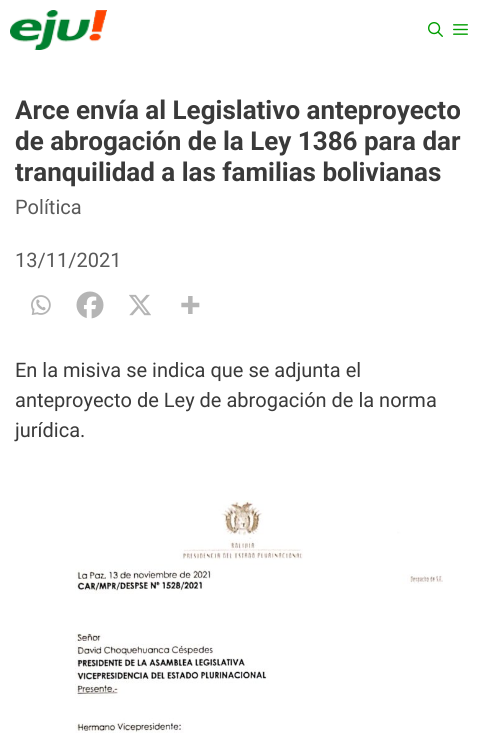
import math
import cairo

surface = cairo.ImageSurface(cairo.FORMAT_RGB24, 488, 736)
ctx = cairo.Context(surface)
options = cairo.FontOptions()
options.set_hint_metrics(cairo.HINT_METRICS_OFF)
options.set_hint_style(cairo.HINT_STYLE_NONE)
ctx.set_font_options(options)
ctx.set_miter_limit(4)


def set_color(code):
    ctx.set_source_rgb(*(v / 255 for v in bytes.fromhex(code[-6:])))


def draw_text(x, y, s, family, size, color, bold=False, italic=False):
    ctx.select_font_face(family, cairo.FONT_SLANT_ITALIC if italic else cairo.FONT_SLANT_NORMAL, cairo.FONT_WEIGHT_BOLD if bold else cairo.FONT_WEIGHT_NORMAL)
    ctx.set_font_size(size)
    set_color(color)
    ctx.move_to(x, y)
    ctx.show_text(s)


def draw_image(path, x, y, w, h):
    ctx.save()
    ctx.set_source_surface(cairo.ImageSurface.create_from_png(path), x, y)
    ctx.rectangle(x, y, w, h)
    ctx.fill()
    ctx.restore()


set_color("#ffffff")
ctx.paint()
draw_image("assets/img1.png", 10, 10, 97, 40)
draw_image("assets/img2.png", 428, 22, 15, 15)
draw_image("assets/img3.png", 453, 24, 15, 11)
draw_text(15, 119, "Arce envía al Legislativo anteproyecto", "Roboto", 26, "#3a3a3a", bold=True)
draw_text(15, 150, "de abrogación de la Ley 1386 para dar", "Roboto", 26, "#3a3a3a", bold=True)
draw_text(15, 181, "tranquilidad a las familias bolivianas", "Roboto", 26, "#3a3a3a", bold=True)
draw_text(15, 214, "Política", "Roboto", 20, "#595959")
draw_text(15, 267, "13/11/2021", "Roboto", 20, "#595959")
draw_image("assets/img4.png", 31, 295, 20, 20)
draw_image("assets/img5.png", 76, 291, 28, 28)
draw_image("assets/img6.png", 129, 294, 22, 22)
draw_image("assets/img7.png", 181, 296, 19, 18)
draw_text(15, 377, "En la misiva se indica que se adjunta el", "Roboto", 20, "#3a3a3a")
draw_text(15, 407, "anteproyecto de Ley de abrogación de la norma", "Roboto", 20, "#3a3a3a")
draw_text(15, 437, "jurídica.", "Roboto", 20, "#3a3a3a")
draw_image("assets/img8.png", 75, 500, 368, 233)
surface.write_to_png("output.png")
